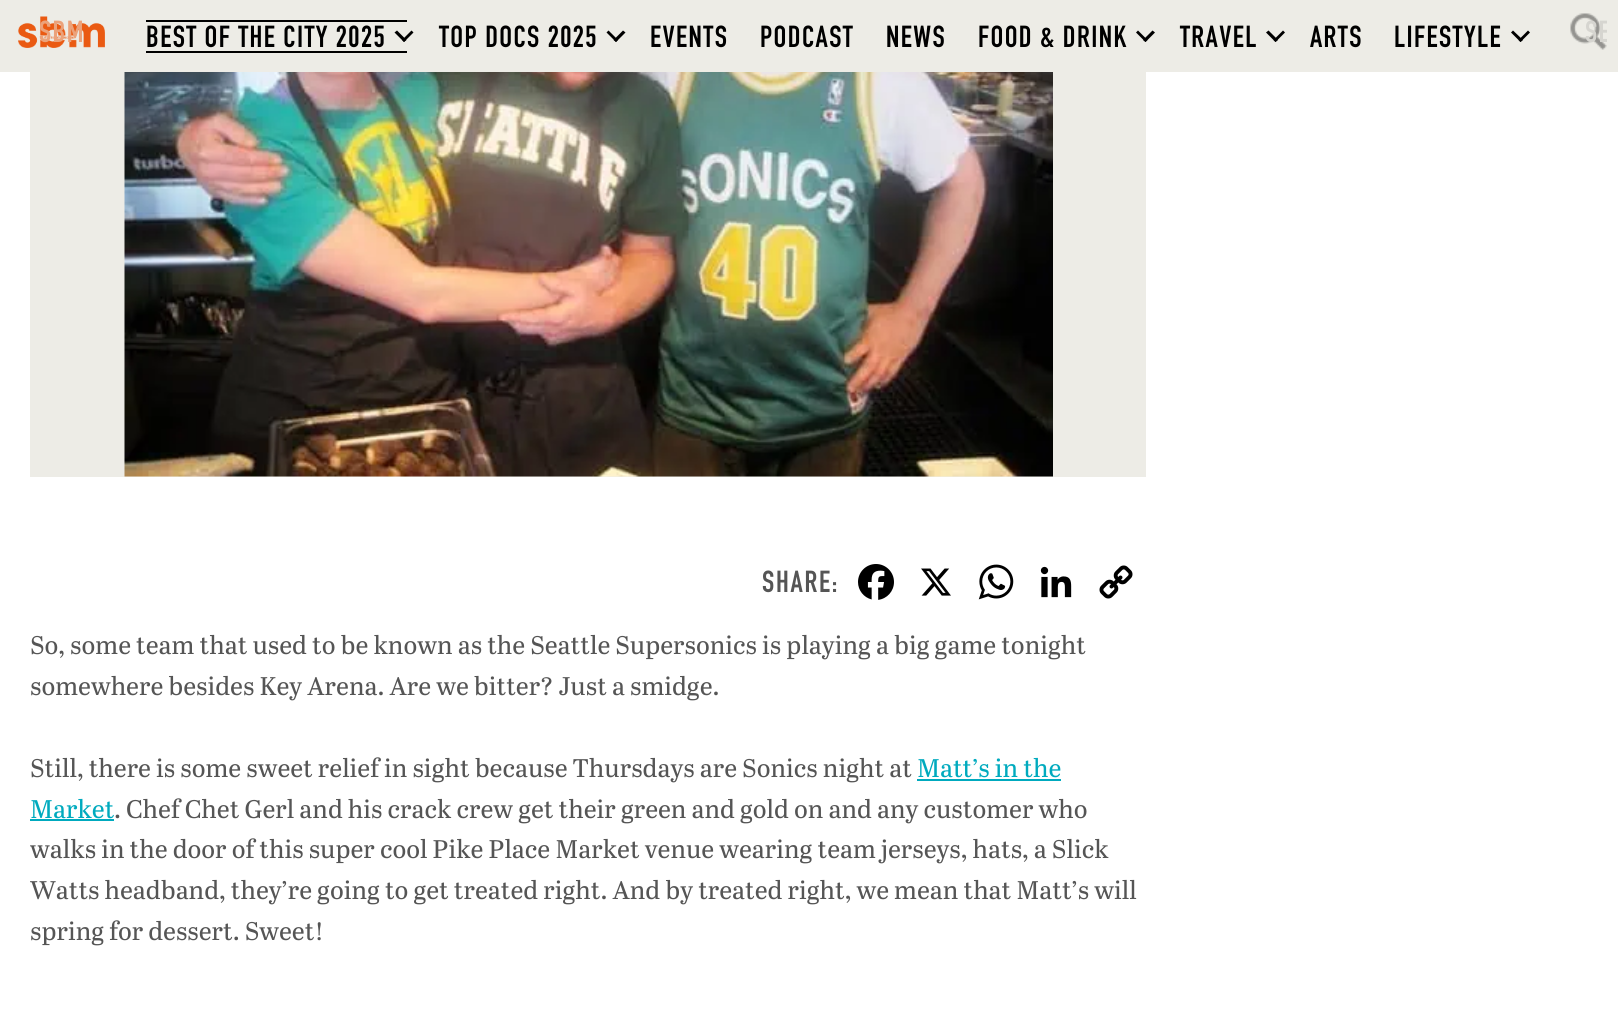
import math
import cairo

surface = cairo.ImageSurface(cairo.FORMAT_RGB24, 1618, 1012)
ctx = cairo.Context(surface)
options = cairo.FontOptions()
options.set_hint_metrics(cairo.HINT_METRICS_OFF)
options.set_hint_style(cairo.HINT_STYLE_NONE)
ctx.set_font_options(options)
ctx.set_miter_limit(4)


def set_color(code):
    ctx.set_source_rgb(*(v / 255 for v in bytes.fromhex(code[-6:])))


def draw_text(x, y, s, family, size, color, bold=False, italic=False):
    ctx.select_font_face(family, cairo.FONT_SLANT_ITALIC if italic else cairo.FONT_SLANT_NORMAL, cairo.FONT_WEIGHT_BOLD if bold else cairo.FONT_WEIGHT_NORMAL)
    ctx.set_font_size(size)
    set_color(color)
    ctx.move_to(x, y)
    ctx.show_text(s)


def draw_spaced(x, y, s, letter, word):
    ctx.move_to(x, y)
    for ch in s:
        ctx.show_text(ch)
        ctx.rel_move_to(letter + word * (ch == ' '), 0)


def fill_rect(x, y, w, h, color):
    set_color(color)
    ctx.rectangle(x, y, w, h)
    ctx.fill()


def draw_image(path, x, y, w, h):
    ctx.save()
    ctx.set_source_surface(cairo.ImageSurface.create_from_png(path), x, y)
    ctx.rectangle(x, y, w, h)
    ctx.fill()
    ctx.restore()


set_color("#ffffff")
ctx.paint()
fill_rect(0, 0, 1618, 72, "#edece6")
draw_image("assets/img1.png", 18, 16, 87, 32)
ctx.select_font_face("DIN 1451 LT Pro")
ctx.set_font_size(30)
set_color("#eba27a")
draw_spaced(39, 42, "SBM", 1.4, 0)
fill_rect(146, 20, 261, 2, "#000000")
fill_rect(146, 51, 261, 2, "#000000")
draw_spaced(146, 47, "BEST OF THE CITY 2025", 1.4, 0)
ctx.new_path()
ctx.move_to(411.5, 30.5)
ctx.line_to(413.5, 32.5)
ctx.line_to(404, 42)
ctx.line_to(402, 40)
ctx.close_path()
ctx.fill()
ctx.new_path()
ctx.move_to(397, 30.5)
ctx.line_to(406.5, 40)
ctx.line_to(404, 42)
ctx.line_to(394.5, 32.5)
ctx.close_path()
ctx.fill()
draw_spaced(439, 47, "TOP DOCS 2025", 1.4, 0)
ctx.new_path()
ctx.move_to(623, 30.5)
ctx.line_to(625.5, 32.5)
ctx.line_to(616, 42)
ctx.line_to(613.5, 40)
ctx.close_path()
ctx.fill()
ctx.new_path()
ctx.move_to(608.5, 30.5)
ctx.line_to(618, 40)
ctx.line_to(616, 42)
ctx.line_to(606.5, 32.5)
ctx.close_path()
ctx.fill()
draw_spaced(650, 47, "EVENTS", 1.4, 0)
draw_spaced(760, 47, "PODCAST", 1.4, 0)
draw_spaced(886, 47, "NEWS", 1.4, 0)
draw_spaced(978, 47, "FOOD & DRINK", 1.4, 0)
ctx.new_path()
ctx.move_to(1152.5, 30.5)
ctx.line_to(1155, 32.5)
ctx.line_to(1145.5, 42)
ctx.line_to(1143, 40)
ctx.close_path()
ctx.fill()
ctx.new_path()
ctx.move_to(1138, 30.5)
ctx.line_to(1147.5, 40)
ctx.line_to(1145.5, 42)
ctx.line_to(1136, 32.5)
ctx.close_path()
ctx.fill()
draw_spaced(1180, 47, "TRAVEL", 1.4, 0)
ctx.new_path()
ctx.move_to(1283, 30.5)
ctx.line_to(1285, 32.5)
ctx.line_to(1275.5, 42)
ctx.line_to(1273.5, 40)
ctx.close_path()
ctx.fill()
ctx.new_path()
ctx.move_to(1268.5, 30.5)
ctx.line_to(1278, 40)
ctx.line_to(1275.5, 42)
ctx.line_to(1266, 32.5)
ctx.close_path()
ctx.fill()
draw_spaced(1310, 47, "ARTS", 1.4, 0)
draw_spaced(1394, 47, "LIFESTYLE", 1.4, 0)
ctx.new_path()
ctx.move_to(1528, 30.5)
ctx.line_to(1530, 32.5)
ctx.line_to(1520.5, 42)
ctx.line_to(1518.5, 40)
ctx.close_path()
ctx.fill()
ctx.new_path()
ctx.move_to(1513, 30.5)
ctx.line_to(1523, 40)
ctx.line_to(1520.5, 42)
ctx.line_to(1511, 32.5)
ctx.close_path()
ctx.fill()
draw_image("assets/img2.png", 1570, 13, 37, 37)
ctx.save()
ctx.rectangle(1571, 0, 36, 68)
ctx.clip()
set_color("#d6d5d0")
draw_spaced(1585, 42, "SE", 1.4, 0)
ctx.restore()
fill_rect(30, 72, 1116, 405, "#edece6")
draw_image("assets/img3.png", 124, 72, 929, 405)
set_color("#555555")
draw_spaced(762, 592, "SHARE:", 1.75, 0)
draw_image("assets/img4.png", 858, 564, 36, 36)
draw_image("assets/img5.png", 921, 568, 30, 28)
draw_image("assets/img6.png", 978, 564, 36, 36)
draw_image("assets/img7.png", 1040, 566, 32, 32)
draw_image("assets/img8.png", 1099, 565, 34, 34)
draw_text(30, 654, "So, some team that used to be known as the Seattle Supersonics is playing a big game tonight", "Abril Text", 25.5, "#555555")
draw_text(30, 695, "somewhere besides Key Arena. Are we bitter? Just a smidge.", "Abril Text", 25.5, "#555555")
draw_text(30, 777, "Still, there is some sweet relief in sight because Thursdays are Sonics night at", "Abril Text", 25.5, "#555555")
draw_text(917, 777, "Matt’s in the", "Abril Text", 25.5, "#00aabe")
fill_rect(917, 779, 144, 2, "#00aabe")
draw_text(30, 818, "Market", "Abril Text", 25.5, "#00aabe")
fill_rect(30, 819, 84, 2, "#00aabe")
draw_text(114, 818, ". Chef Chet Gerl and his crack crew get their green and gold on and any customer who", "Abril Text", 25.5, "#555555")
draw_text(30, 858, "walks in the door of this super cool Pike Place Market venue wearing team jerseys, hats, a Slick", "Abril Text", 25.5, "#555555")
draw_text(30, 899, "Watts headband, they’re going to get treated right. And by treated right, we mean that Matt’s will", "Abril Text", 25.5, "#555555")
draw_text(30, 940, "spring for dessert. Sweet!", "Abril Text", 25.5, "#555555")
surface.write_to_png("output.png")
